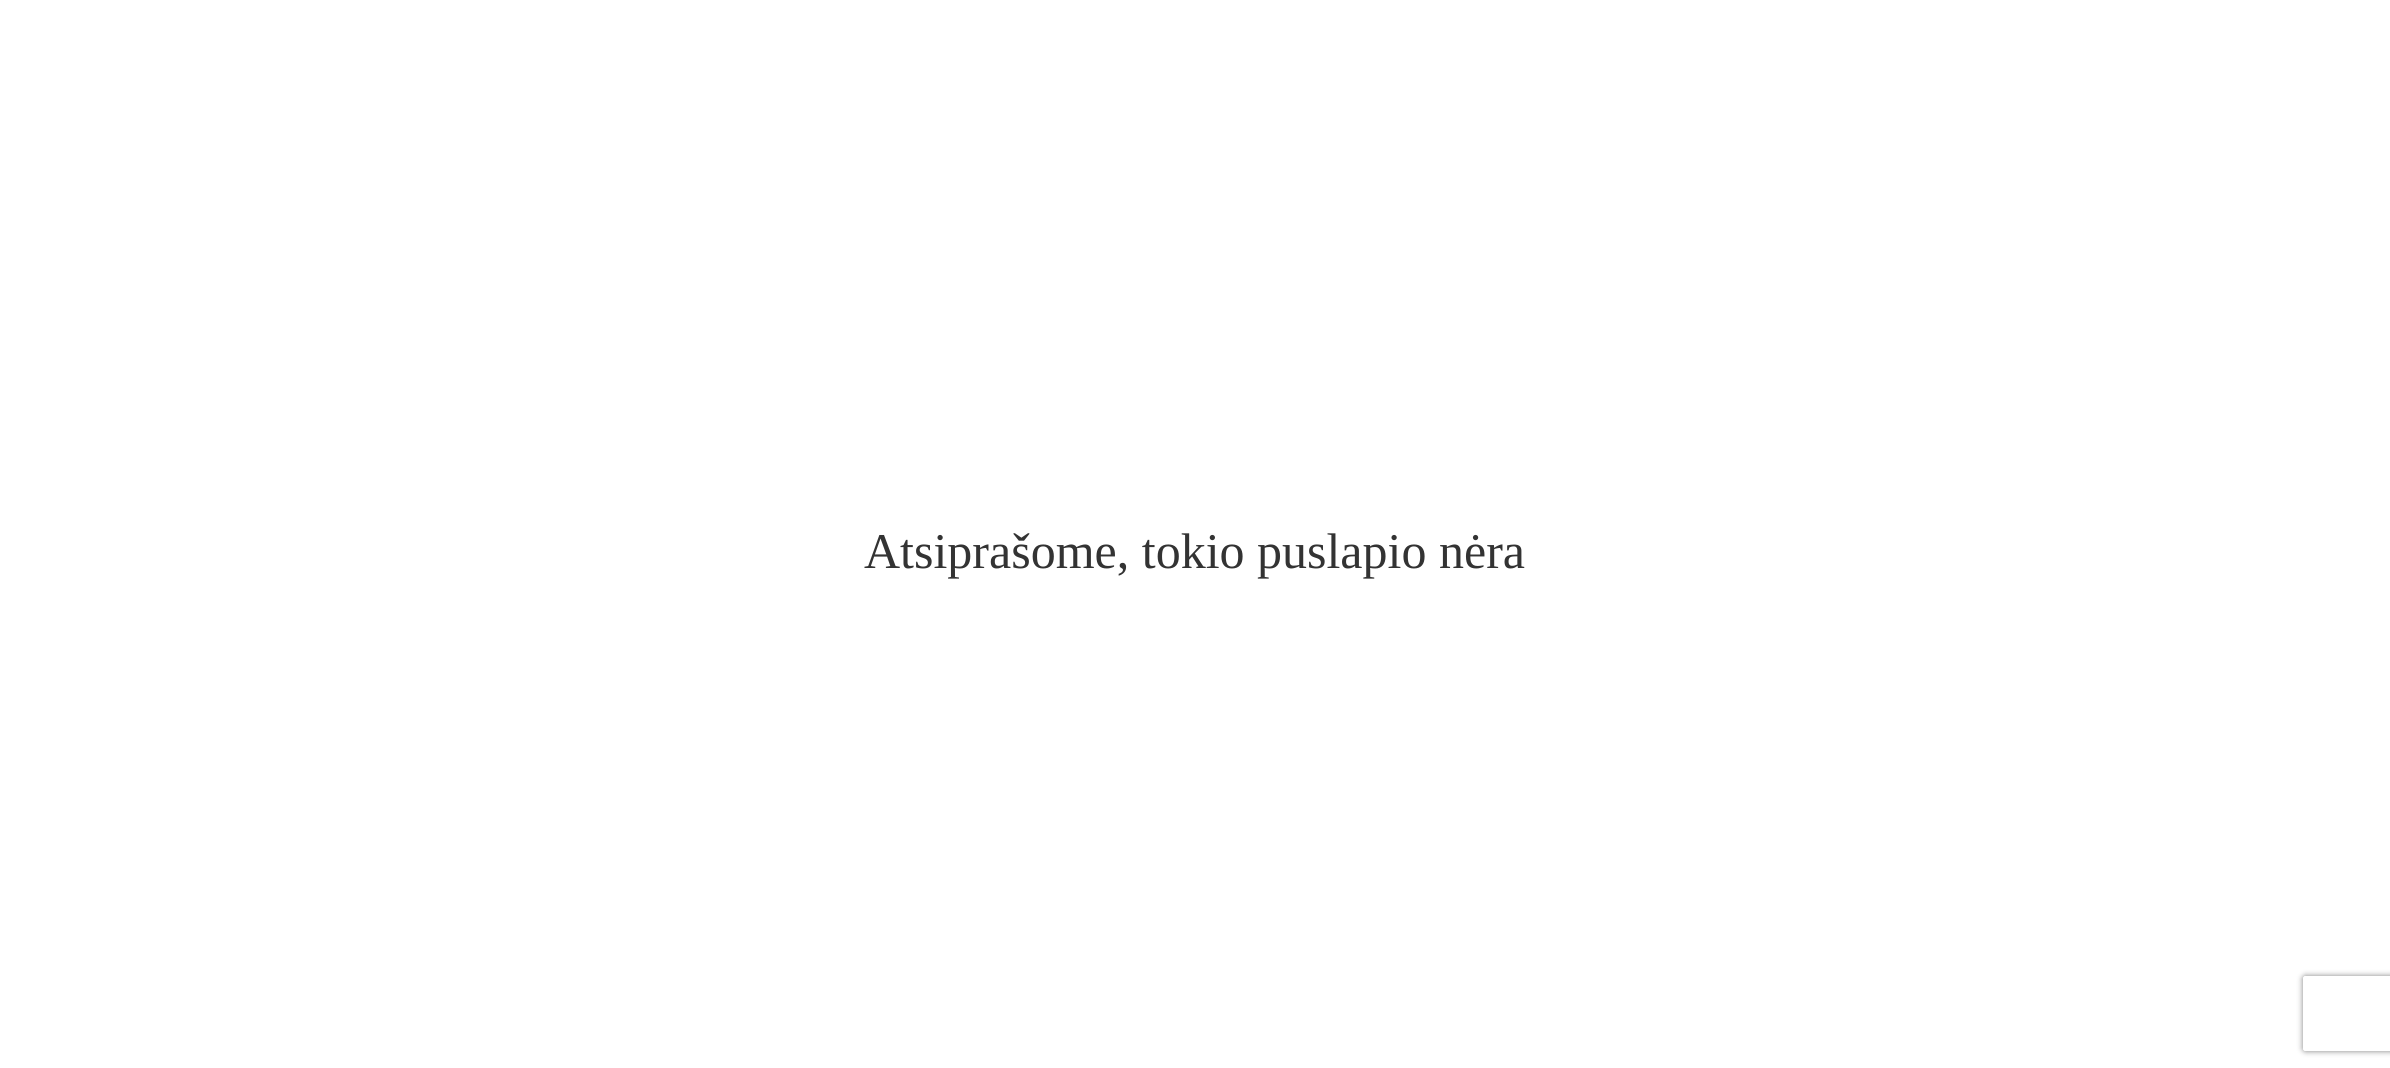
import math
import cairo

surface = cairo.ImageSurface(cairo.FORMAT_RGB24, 2390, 1068)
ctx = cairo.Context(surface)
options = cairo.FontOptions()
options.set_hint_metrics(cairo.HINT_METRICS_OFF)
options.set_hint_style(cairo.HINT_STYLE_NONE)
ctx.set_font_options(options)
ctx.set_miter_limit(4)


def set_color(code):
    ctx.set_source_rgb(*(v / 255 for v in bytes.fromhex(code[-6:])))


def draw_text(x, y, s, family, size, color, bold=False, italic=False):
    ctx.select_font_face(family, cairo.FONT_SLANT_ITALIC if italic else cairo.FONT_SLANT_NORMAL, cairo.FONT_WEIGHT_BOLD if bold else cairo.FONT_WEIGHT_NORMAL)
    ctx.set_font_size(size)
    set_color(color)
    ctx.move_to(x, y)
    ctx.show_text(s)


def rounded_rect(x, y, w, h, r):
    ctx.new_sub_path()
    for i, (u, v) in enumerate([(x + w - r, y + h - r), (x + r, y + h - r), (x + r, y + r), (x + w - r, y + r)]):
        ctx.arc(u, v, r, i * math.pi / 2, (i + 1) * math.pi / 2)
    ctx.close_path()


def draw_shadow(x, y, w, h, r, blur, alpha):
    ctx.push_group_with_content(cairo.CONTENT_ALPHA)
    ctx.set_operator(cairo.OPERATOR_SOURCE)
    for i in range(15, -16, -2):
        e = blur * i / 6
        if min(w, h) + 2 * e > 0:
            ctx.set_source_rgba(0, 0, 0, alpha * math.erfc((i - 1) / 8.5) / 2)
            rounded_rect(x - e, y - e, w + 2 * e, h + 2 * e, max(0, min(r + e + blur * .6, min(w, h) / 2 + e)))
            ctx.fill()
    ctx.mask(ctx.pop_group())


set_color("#ffffff")
ctx.paint()
draw_text(864, 568, "Atsiprašome, tokio puslapio nėra", "Liberation Serif", 50, "#333333")
ctx.save()
ctx.set_fill_rule(cairo.FILL_RULE_EVEN_ODD)
ctx.new_path()
ctx.move_to(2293, 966)
ctx.line_to(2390, 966)
ctx.line_to(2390, 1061)
ctx.line_to(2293, 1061)
ctx.close_path()
ctx.move_to(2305.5, 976)
ctx.line_to(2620.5, 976)
ctx.curve_to(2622, 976, 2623, 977, 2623, 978.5)
ctx.line_to(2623, 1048.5)
ctx.curve_to(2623, 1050, 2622, 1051, 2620.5, 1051)
ctx.line_to(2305.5, 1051)
ctx.curve_to(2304, 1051, 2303, 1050, 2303, 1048.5)
ctx.line_to(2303, 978.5)
ctx.curve_to(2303, 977, 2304, 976, 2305.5, 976)
ctx.close_path()
ctx.clip()
set_color("#808080")
draw_shadow(2303, 976, 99, 75, 2.5, 3, 1)
ctx.restore()
surface.write_to_png("output.png")
